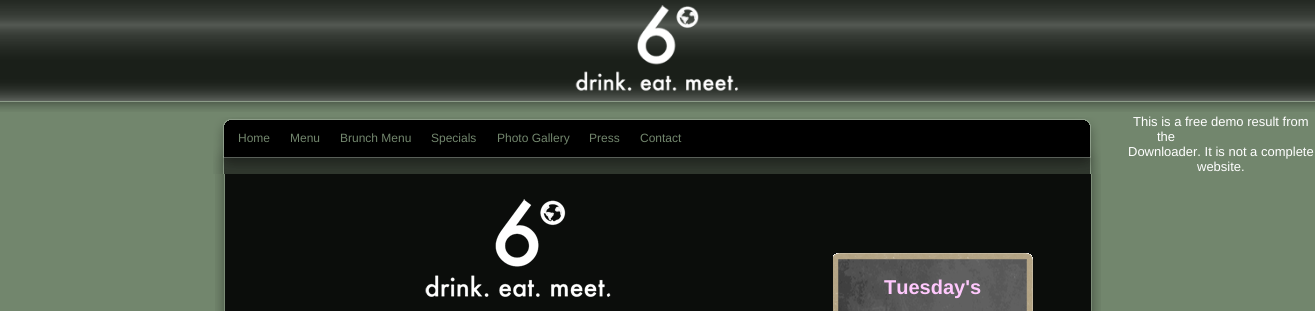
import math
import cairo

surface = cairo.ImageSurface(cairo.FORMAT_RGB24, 1315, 311)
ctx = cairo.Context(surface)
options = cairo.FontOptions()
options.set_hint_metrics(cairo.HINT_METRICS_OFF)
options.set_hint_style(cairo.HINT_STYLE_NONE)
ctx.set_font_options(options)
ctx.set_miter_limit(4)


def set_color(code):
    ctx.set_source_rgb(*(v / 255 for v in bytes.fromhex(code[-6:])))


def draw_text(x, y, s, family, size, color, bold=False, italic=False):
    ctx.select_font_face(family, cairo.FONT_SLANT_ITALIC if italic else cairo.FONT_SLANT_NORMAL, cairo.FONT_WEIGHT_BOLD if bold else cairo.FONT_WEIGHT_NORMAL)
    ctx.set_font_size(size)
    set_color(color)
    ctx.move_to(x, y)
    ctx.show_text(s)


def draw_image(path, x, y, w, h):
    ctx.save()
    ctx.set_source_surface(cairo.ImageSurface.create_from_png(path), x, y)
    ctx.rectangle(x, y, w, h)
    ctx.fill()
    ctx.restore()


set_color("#72866d")
ctx.paint()
draw_image("assets/img1.png", 0, 0, 1315, 112)
draw_image("assets/img2.png", 575, 5, 164, 86)
draw_image("assets/img3.png", 213, 117, 888, 57)
draw_text(238, 142, "Home", "Liberation Sans", 12, "#72866d")
draw_text(290, 142, "Menu", "Liberation Sans", 12, "#72866d")
draw_text(340, 142, "Brunch Menu", "Liberation Sans", 12, "#72866d")
draw_text(431, 142, "Specials", "Liberation Sans", 12, "#72866d")
draw_text(497, 142, "Photo Gallery", "Liberation Sans", 12, "#72866d")
draw_text(589, 142, "Press", "Liberation Sans", 12, "#72866d")
draw_text(640, 142, "Contact", "Liberation Sans", 12, "#72866d")
draw_image("assets/img4.png", 215, 174, 886, 137)
draw_image("assets/img5.png", 425, 199, 186, 98)
draw_image("assets/img6.png", 833, 253, 200, 58)
draw_text(884, 294, "Tuesday's", "Liberation Sans", 20, "#ffc8fd", bold=True)
draw_text(1133, 126, "This is a free demo result from", "Liberation Sans", 13, "#ffffff")
draw_text(1157, 141, "the", "Liberation Sans", 13, "#ffffff")
draw_text(1128, 156, "Downloader. It is not a complete", "Liberation Sans", 13, "#ffffff")
draw_text(1197, 171, "website.", "Liberation Sans", 13, "#ffffff")
surface.write_to_png("output.png")
